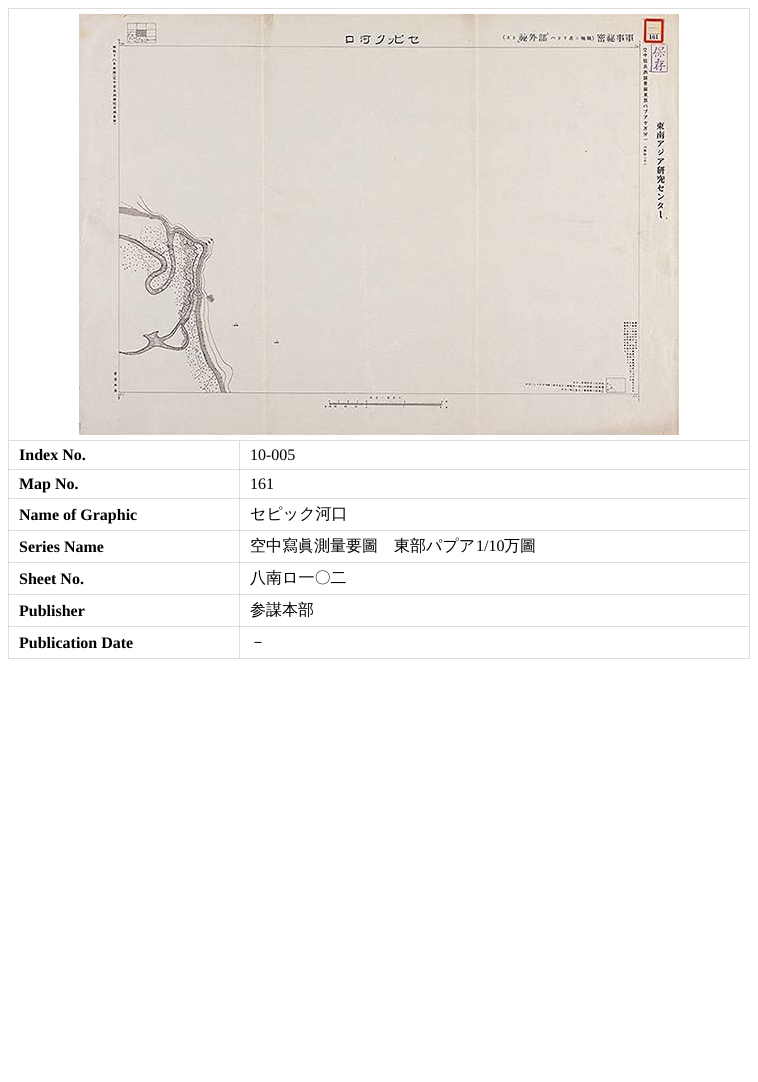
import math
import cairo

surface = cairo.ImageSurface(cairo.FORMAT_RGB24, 758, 1082)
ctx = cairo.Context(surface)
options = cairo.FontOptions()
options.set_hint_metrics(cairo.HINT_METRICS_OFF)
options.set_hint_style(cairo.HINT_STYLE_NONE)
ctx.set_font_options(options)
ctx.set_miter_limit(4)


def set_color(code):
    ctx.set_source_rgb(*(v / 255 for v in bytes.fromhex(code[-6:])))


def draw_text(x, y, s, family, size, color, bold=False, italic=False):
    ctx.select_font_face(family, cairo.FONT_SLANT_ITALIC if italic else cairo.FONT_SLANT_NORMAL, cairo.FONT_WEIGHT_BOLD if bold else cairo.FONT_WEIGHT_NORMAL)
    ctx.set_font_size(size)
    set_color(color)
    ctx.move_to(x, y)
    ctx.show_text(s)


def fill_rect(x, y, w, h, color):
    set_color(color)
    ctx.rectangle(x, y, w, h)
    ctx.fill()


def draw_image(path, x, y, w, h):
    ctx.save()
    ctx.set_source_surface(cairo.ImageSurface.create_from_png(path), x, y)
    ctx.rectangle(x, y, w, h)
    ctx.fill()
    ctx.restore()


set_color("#ffffff")
ctx.paint()
fill_rect(8, 8, 742, 1, "#dddddd")
fill_rect(239, 440, 511, 1, "#dddddd")
fill_rect(239, 469, 511, 1, "#dddddd")
fill_rect(239, 498, 511, 1, "#dddddd")
fill_rect(239, 530, 511, 1, "#dddddd")
fill_rect(239, 562, 511, 1, "#dddddd")
fill_rect(239, 594, 511, 1, "#dddddd")
fill_rect(239, 626, 511, 1, "#dddddd")
fill_rect(749, 626, 1, 33, "#dddddd")
fill_rect(749, 594, 1, 33, "#dddddd")
fill_rect(749, 562, 1, 33, "#dddddd")
fill_rect(749, 530, 1, 33, "#dddddd")
fill_rect(749, 498, 1, 33, "#dddddd")
fill_rect(749, 469, 1, 30, "#dddddd")
fill_rect(749, 440, 1, 30, "#dddddd")
fill_rect(749, 8, 1, 433, "#dddddd")
fill_rect(239, 658, 511, 1, "#dddddd")
fill_rect(239, 626, 1, 33, "#dddddd")
fill_rect(8, 626, 232, 1, "#dddddd")
fill_rect(239, 594, 1, 33, "#dddddd")
fill_rect(8, 594, 232, 1, "#dddddd")
fill_rect(239, 562, 1, 33, "#dddddd")
fill_rect(8, 562, 232, 1, "#dddddd")
fill_rect(239, 530, 1, 33, "#dddddd")
fill_rect(8, 530, 232, 1, "#dddddd")
fill_rect(239, 498, 1, 33, "#dddddd")
fill_rect(8, 498, 232, 1, "#dddddd")
fill_rect(239, 469, 1, 30, "#dddddd")
fill_rect(8, 469, 232, 1, "#dddddd")
fill_rect(239, 440, 1, 30, "#dddddd")
fill_rect(8, 440, 232, 1, "#dddddd")
fill_rect(8, 658, 232, 1, "#dddddd")
fill_rect(8, 626, 1, 33, "#dddddd")
fill_rect(8, 594, 1, 33, "#dddddd")
fill_rect(8, 562, 1, 33, "#dddddd")
fill_rect(8, 530, 1, 33, "#dddddd")
fill_rect(8, 498, 1, 33, "#dddddd")
fill_rect(8, 469, 1, 30, "#dddddd")
fill_rect(8, 440, 1, 30, "#dddddd")
fill_rect(8, 8, 1, 433, "#dddddd")
draw_image("assets/img1.png", 79, 14, 600, 421)
draw_text(19, 460, "Index No.", "Liberation Serif", 16, "#000000", bold=True)
draw_text(250, 460, "10-005", "Liberation Serif", 16, "#000000")
draw_text(19, 489, "Map No.", "Liberation Serif", 16, "#000000", bold=True)
draw_text(250, 489, "161", "Liberation Serif", 16, "#000000")
draw_text(19, 520, "Name of Graphic", "Liberation Serif", 16, "#000000", bold=True)
draw_text(250, 519, "セピック河口", "WenQuanYi Zen Hei Medium", 16, "#000000")
draw_text(19, 552, "Series Name", "Liberation Serif", 16, "#000000", bold=True)
draw_text(250, 551, "空中寫眞測量要圖　東部パプア", "WenQuanYi Zen Hei Medium", 16, "#000000")
draw_text(476, 551, "1/10", "Liberation Serif", 16, "#000000")
draw_text(504, 551, "万圖", "WenQuanYi Zen Hei Medium", 16, "#000000")
draw_text(19, 584, "Sheet No.", "Liberation Serif", 16, "#000000", bold=True)
draw_text(250, 583, "八南ロ一〇二", "WenQuanYi Zen Hei Medium", 16, "#000000")
draw_text(19, 616, "Publisher", "Liberation Serif", 16, "#000000", bold=True)
draw_text(250, 615, "参謀本部", "WenQuanYi Zen Hei Medium", 16, "#000000")
draw_text(19, 648, "Publication Date", "Liberation Serif", 16, "#000000", bold=True)
draw_text(250, 647, "－", "WenQuanYi Zen Hei Medium", 16, "#000000")
surface.write_to_png("output.png")
